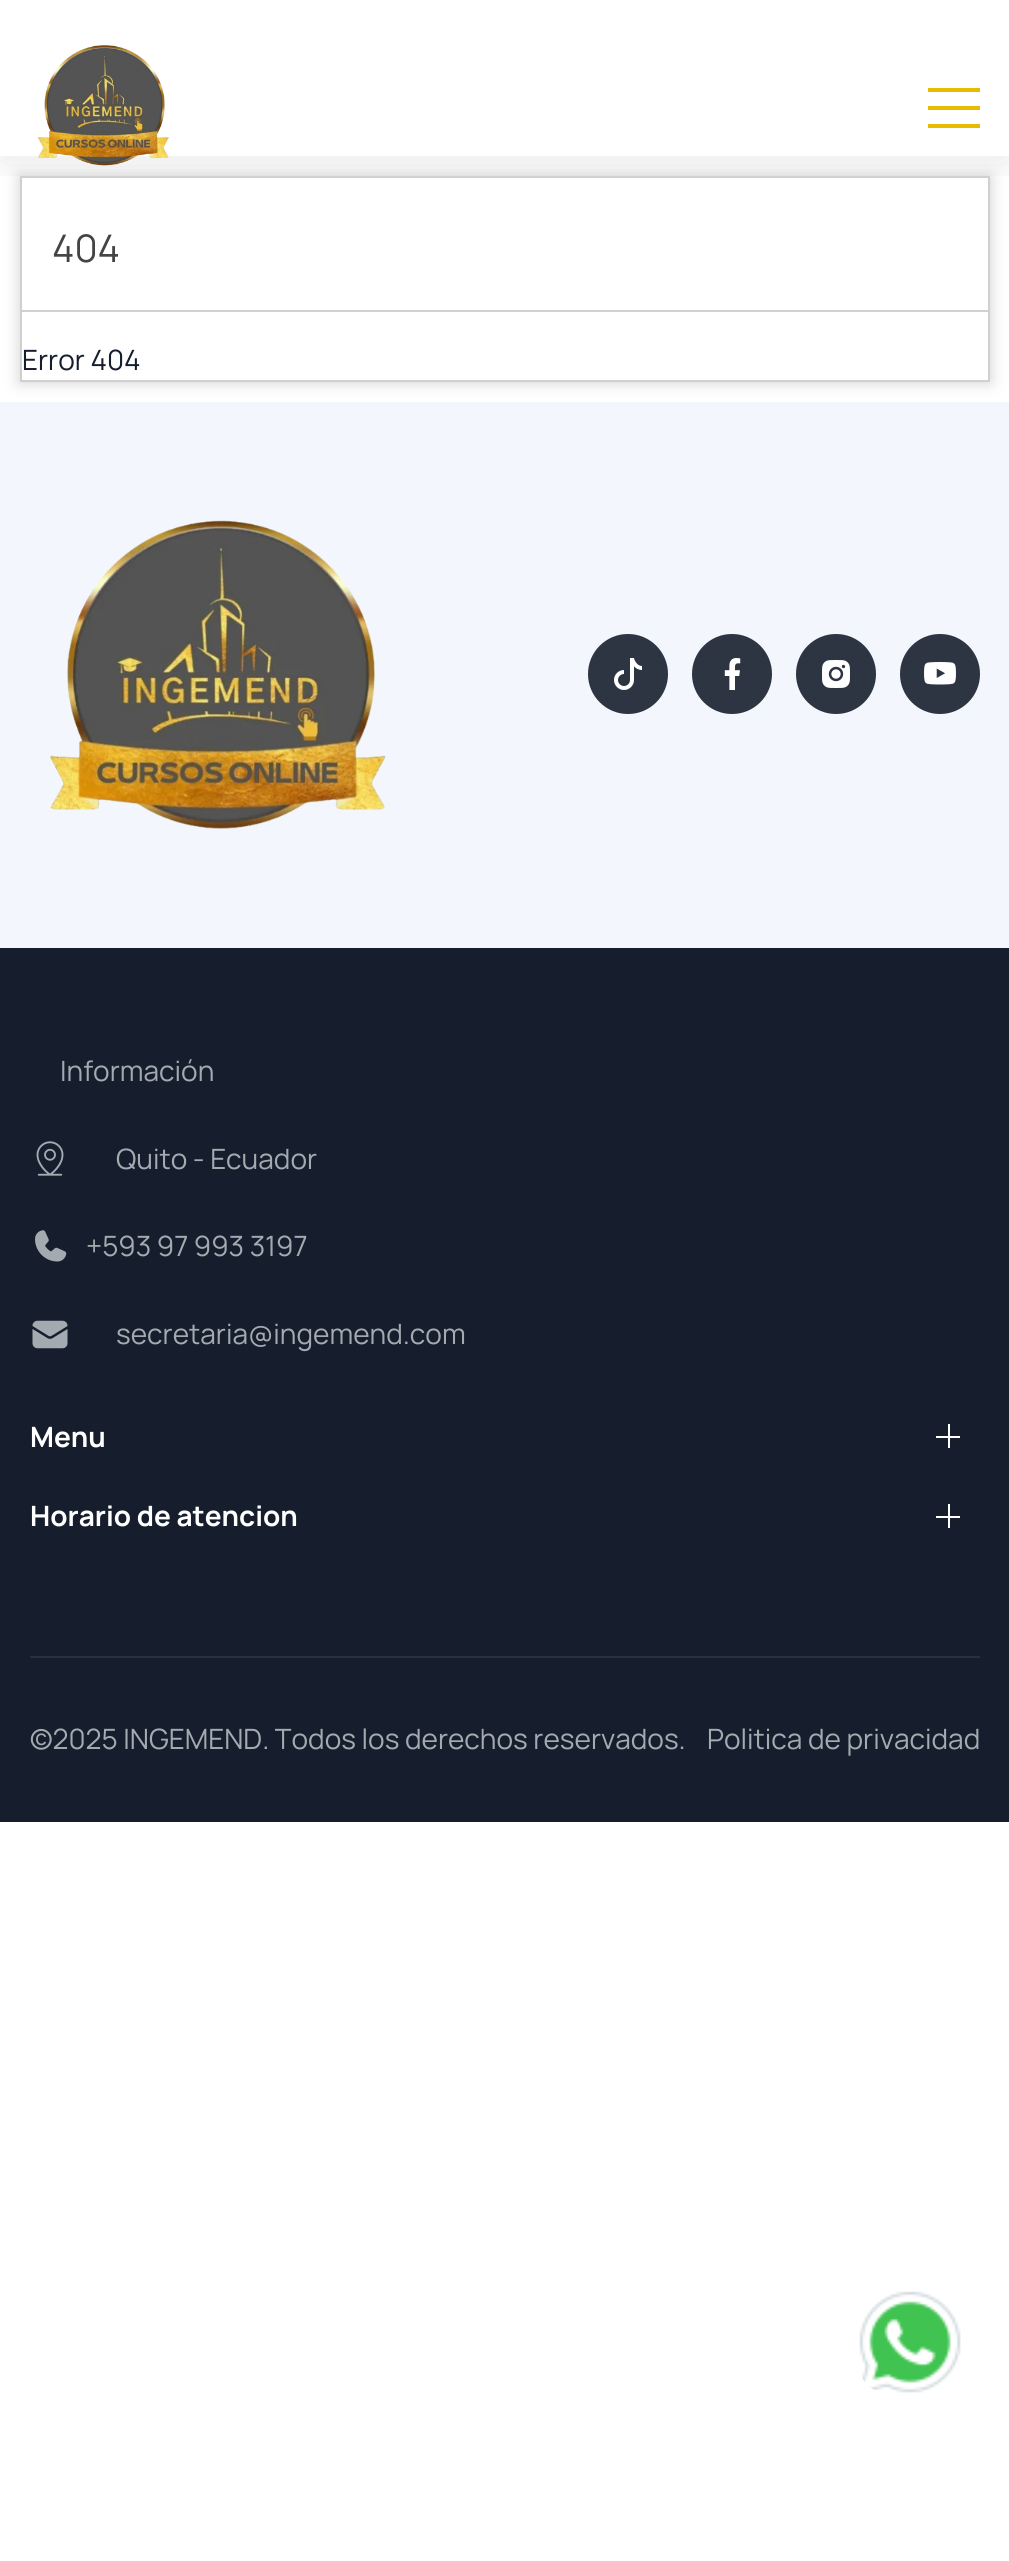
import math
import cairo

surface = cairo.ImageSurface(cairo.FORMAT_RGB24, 1009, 2561)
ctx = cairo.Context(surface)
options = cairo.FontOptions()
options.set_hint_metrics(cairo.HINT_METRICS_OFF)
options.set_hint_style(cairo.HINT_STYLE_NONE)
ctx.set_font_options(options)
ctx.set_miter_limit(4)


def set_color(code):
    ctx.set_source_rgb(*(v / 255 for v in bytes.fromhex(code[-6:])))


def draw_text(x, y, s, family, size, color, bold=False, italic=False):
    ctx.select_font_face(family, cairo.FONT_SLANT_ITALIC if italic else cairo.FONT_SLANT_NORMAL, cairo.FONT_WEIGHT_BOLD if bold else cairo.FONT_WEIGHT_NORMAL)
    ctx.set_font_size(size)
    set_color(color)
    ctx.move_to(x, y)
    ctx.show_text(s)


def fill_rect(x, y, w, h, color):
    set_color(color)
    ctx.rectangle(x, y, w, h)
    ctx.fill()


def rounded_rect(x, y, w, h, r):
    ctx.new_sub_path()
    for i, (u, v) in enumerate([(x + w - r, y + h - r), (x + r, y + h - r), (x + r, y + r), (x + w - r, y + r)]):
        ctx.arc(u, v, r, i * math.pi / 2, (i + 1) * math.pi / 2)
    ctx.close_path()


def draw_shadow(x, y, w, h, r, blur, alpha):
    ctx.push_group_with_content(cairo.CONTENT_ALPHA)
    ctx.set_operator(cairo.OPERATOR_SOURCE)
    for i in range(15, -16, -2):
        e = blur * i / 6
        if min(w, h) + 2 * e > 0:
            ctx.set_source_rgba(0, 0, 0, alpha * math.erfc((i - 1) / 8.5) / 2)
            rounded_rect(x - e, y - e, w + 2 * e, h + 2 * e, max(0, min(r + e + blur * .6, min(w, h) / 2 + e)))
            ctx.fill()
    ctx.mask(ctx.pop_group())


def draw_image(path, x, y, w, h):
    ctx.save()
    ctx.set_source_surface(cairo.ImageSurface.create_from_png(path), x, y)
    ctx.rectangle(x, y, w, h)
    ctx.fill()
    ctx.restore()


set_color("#ffffff")
ctx.paint()
ctx.save()
ctx.set_fill_rule(cairo.FILL_RULE_EVEN_ODD)
ctx.new_path()
ctx.move_to(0, 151)
ctx.line_to(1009, 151)
ctx.line_to(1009, 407)
ctx.line_to(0, 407)
ctx.close_path()
ctx.move_to(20, 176)
ctx.line_to(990, 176)
ctx.line_to(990, 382)
ctx.line_to(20, 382)
ctx.close_path()
ctx.clip()
set_color("#d0d0d0")
draw_shadow(20, 176, 970, 206, 0, 8, 1)
ctx.restore()
ctx.rectangle(21, 177, 968, 204)
set_color("#d0d0d0")
ctx.stroke()
ctx.save()
ctx.rectangle(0, 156, 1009, 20)
ctx.clip()
set_color("#000000")
draw_shadow(0, 8, 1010, 156, 0, 18, 0.08)
ctx.restore()
draw_image("assets/img1.png", 38, 45, 131, 121)
fill_rect(928, 88, 52, 4, "#e8bb00")
fill_rect(928, 106, 52, 4, "#e8bb00")
fill_rect(928, 124, 52, 4, "#e8bb00")
fill_rect(22, 310, 966, 2, "#d0d0d0")
draw_text(52, 262, "404", "Manrope", 38, "#444444")
draw_text(22, 370, "Error 404", "Manrope", 28, "#161e2d")
fill_rect(0, 948, 1009, 874, "#161e2d")
fill_rect(0, 402, 1009, 546, "#f3f7fd")
draw_image("assets/img2.png", 50, 520, 336, 309)
set_color("#161e2d")
ctx.arc(628, 674, 40, 0, 2 * math.pi)
ctx.fill()
ctx.set_source_rgba(1, 1, 1, 0.1)
ctx.arc(628, 674, 40, 0, 2 * math.pi)
ctx.fill()
draw_image("assets/img3.png", 614, 658, 28, 32)
set_color("#161e2d")
ctx.arc(732, 674, 40, 0, 2 * math.pi)
ctx.fill()
ctx.set_source_rgba(1, 1, 1, 0.1)
ctx.arc(732, 674, 40, 0, 2 * math.pi)
ctx.fill()
draw_image("assets/img4.png", 724, 658, 17, 32)
set_color("#161e2d")
ctx.arc(836, 674, 40, 0, 2 * math.pi)
ctx.fill()
ctx.set_source_rgba(1, 1, 1, 0.1)
ctx.arc(836, 674, 40, 0, 2 * math.pi)
ctx.fill()
draw_image("assets/img5.png", 822, 660, 28, 28)
set_color("#161e2d")
ctx.arc(940, 674, 40, 0, 2 * math.pi)
ctx.fill()
ctx.set_source_rgba(1, 1, 1, 0.1)
ctx.arc(940, 674, 40, 0, 2 * math.pi)
ctx.fill()
draw_image("assets/img6.png", 924, 662, 32, 23)
draw_text(60, 1081, "Información", "Manrope", 28, "#a3abb0")
draw_image("assets/img7.png", 36, 1141, 28, 35)
draw_text(116, 1169, "Quito - Ecuador", "Manrope", 28, "#a3abb0")
draw_image("assets/img8.png", 35, 1230, 32, 32)
draw_text(86, 1256, "+593 97 993 3197", "Manrope", 28, "#a3abb0")
draw_image("assets/img9.png", 32, 1320, 36, 29)
draw_text(116, 1344, "secretaria@ingemend.com", "Manrope", 28, "#a3abb0")
draw_text(30, 1447, "Menu", "Manrope", 28, "#ffffff", bold=True)
fill_rect(948, 1424, 2, 24, "#ffffff")
fill_rect(936, 1436, 24, 2, "#ffffff")
draw_text(30, 1526, "Horario de atencion", "Manrope", 28, "#ffffff", bold=True)
fill_rect(948, 1504, 2, 24, "#ffffff")
fill_rect(936, 1516, 24, 2, "#ffffff")
fill_rect(30, 1656, 950, 2, "#29303e")
draw_text(30, 1749, "©2025 INGEMEND. Todos los derechos reservados.", "Manrope", 28, "#a3abb0")
draw_text(707, 1749, "Politica de privacidad", "Manrope", 28, "#a3abb0")
draw_image("assets/img10.png", 859, 2291, 102, 102)
surface.write_to_png("output.png")
